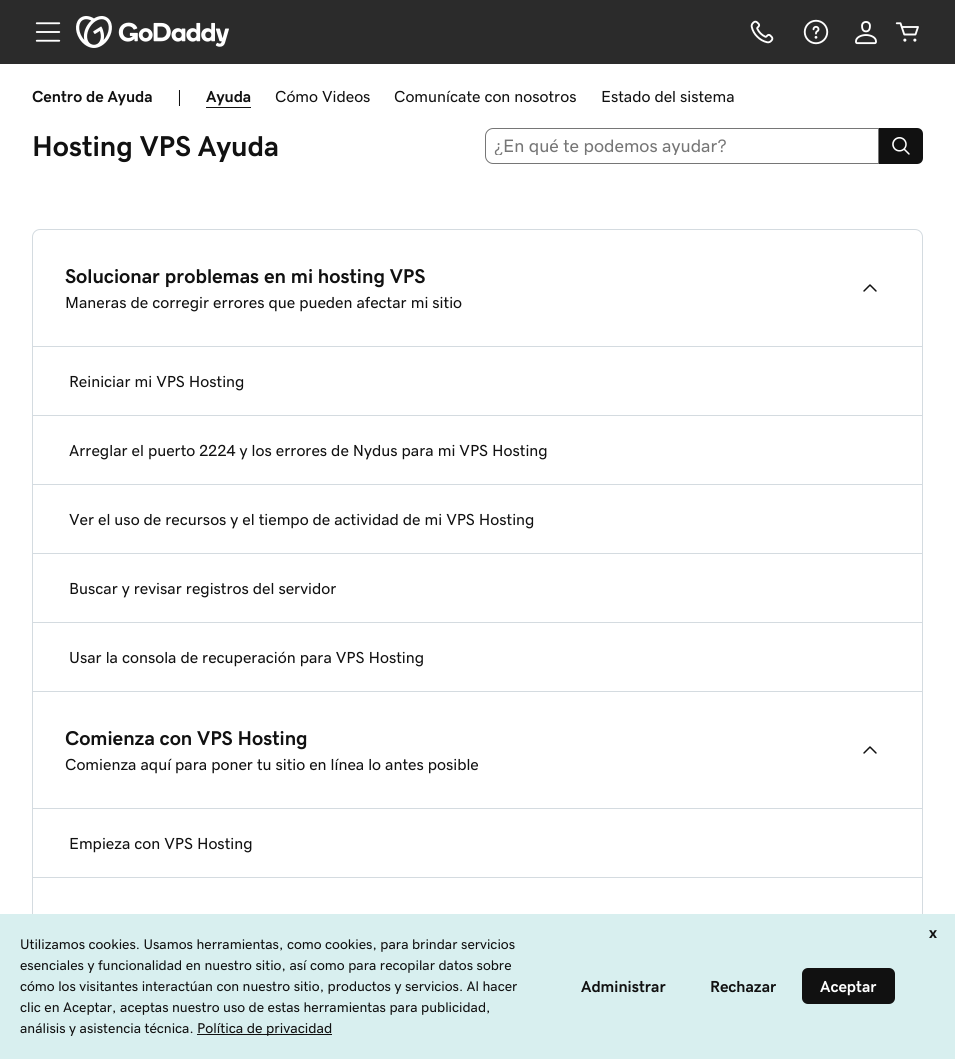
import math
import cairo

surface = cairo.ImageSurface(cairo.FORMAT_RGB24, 955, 1059)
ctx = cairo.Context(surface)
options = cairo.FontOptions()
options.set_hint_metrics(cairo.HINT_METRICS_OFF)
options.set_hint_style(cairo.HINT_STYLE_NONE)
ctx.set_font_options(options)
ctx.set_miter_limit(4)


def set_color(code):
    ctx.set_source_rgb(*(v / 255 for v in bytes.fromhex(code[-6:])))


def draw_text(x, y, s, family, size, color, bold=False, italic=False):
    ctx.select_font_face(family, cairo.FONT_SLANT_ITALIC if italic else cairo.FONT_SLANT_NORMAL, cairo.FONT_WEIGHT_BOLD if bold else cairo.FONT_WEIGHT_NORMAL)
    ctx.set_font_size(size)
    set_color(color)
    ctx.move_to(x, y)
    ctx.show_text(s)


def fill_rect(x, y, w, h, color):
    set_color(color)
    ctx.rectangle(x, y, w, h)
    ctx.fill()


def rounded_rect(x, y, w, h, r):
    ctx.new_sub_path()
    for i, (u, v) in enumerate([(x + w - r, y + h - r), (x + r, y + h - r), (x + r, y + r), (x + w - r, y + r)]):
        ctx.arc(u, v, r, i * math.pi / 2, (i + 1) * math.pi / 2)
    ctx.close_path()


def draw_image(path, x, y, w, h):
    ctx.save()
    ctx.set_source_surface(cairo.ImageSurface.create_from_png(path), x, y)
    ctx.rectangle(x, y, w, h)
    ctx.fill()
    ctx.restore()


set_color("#ffffff")
ctx.paint()
fill_rect(0, 0, 955, 64, "#2b2b2b")
draw_image("assets/img1.png", 35, 22, 26, 20)
draw_image("assets/img2.png", 76, 16, 153, 32)
draw_image("assets/img3.png", 750, 20, 24, 24)
draw_image("assets/img4.png", 803, 19, 26, 26)
draw_image("assets/img5.png", 855, 21, 22, 24)
draw_image("assets/img6.png", 895, 22, 24, 20)
draw_text(32, 102, "Centro de Ayuda", "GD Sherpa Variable", 16, "#111111", bold=True)
draw_text(177, 102, "|", "GD Sherpa Variable", 16, "#111111")
draw_text(206, 102, "Ayuda", "GD Sherpa Variable", 16, "#111111", bold=True)
fill_rect(206, 107, 45, 1, "#111111")
draw_text(275, 102, "Cómo Videos", "GD Sherpa Variable", 16, "#111111")
draw_text(394, 102, "Comunícate con nosotros", "GD Sherpa Variable", 16, "#111111")
draw_text(601, 102, "Estado del sistema", "GD Sherpa Variable", 16, "#111111")
draw_text(32, 156, "Hosting VPS Ayuda", "GD Sherpa Variable", 28.75, "#111111", bold=True)
ctx.new_path()
ctx.move_to(493, 128.5)
ctx.line_to(878.5, 128.5)
ctx.line_to(878.5, 163.5)
ctx.line_to(493, 163.5)
ctx.curve_to(489, 163.5, 485.5, 160, 485.5, 156)
ctx.line_to(485.5, 136)
ctx.curve_to(485.5, 132, 489, 128.5, 493, 128.5)
ctx.close_path()
set_color("#767676")
ctx.set_line_width(1)
ctx.stroke()
ctx.save()
ctx.rectangle(494, 137, 376, 18)
ctx.clip()
draw_text(494, 152, "¿En qué te podemos ayudar?", "GD Sherpa Variable", 18, "#767676")
ctx.restore()
set_color("#111111")
ctx.new_path()
ctx.move_to(879, 128)
ctx.line_to(917, 128)
ctx.curve_to(920.5, 128, 923, 130.5, 923, 134)
ctx.line_to(923, 158)
ctx.curve_to(923, 161.5, 920.5, 164, 917, 164)
ctx.line_to(879, 164)
ctx.close_path()
ctx.fill()
draw_image("assets/img7.png", 892, 137, 18, 18)
rounded_rect(32.5, 229.5, 890, 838, 7.5)
set_color("#d4dbe0")
ctx.stroke()
fill_rect(33, 691, 889, 1, "#d4dbe0")
draw_text(65, 283, "Solucionar problemas en mi hosting VPS", "GD Sherpa Variable", 20, "#111111", bold=True)
draw_text(65, 308, "Maneras de corregir errores que pueden afectar mi sitio", "GD Sherpa Variable", 16, "#111111")
draw_image("assets/img8.png", 863, 284, 14, 8)
fill_rect(33, 346, 889, 1, "#d4dbe0")
draw_text(69, 387, "Reiniciar mi VPS Hosting", "GD Sherpa Variable", 16, "#111111")
fill_rect(33, 415, 889, 1, "#d4dbe0")
draw_text(69, 456, "Arreglar el puerto 2224 y los errores de Nydus para mi VPS Hosting", "GD Sherpa Variable", 16, "#111111")
fill_rect(33, 484, 889, 1, "#d4dbe0")
draw_text(69, 525, "Ver el uso de recursos y el tiempo de actividad de mi VPS Hosting", "GD Sherpa Variable", 16, "#111111")
fill_rect(33, 553, 889, 1, "#d4dbe0")
draw_text(69, 594, "Buscar y revisar registros del servidor", "GD Sherpa Variable", 16, "#111111")
fill_rect(33, 622, 889, 1, "#d4dbe0")
draw_text(69, 663, "Usar la consola de recuperación para VPS Hosting", "GD Sherpa Variable", 16, "#111111")
draw_text(65, 745, "Comienza con VPS Hosting", "GD Sherpa Variable", 20, "#111111", bold=True)
draw_text(65, 770, "Comienza aquí para poner tu sitio en línea lo antes posible", "GD Sherpa Variable", 16, "#111111")
draw_image("assets/img8.png", 863, 746, 14, 8)
fill_rect(33, 808, 889, 1, "#d4dbe0")
draw_text(69, 849, "Empieza con VPS Hosting", "GD Sherpa Variable", 16, "#111111")
fill_rect(33, 877, 889, 1, "#d4dbe0")
fill_rect(0, 914, 955, 145, "#d8efef")
draw_text(929, 938, "x", "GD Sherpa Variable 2", 16, "#111111", bold=True)
draw_text(20, 949, "Utilizamos cookies. Usamos herramientas, como cookies, para brindar servicios", "GD Sherpa Variable", 14, "#111111")
draw_text(20, 970, "esenciales y funcionalidad en nuestro sitio, así como para recopilar datos sobre", "GD Sherpa Variable", 14, "#111111")
draw_text(20, 991, "cómo los visitantes interactúan con nuestro sitio, productos y servicios. Al hacer", "GD Sherpa Variable", 14, "#111111")
draw_text(20, 1012, "clic en Aceptar, aceptas nuestro uso de estas herramientas para publicidad,", "GD Sherpa Variable", 14, "#111111")
draw_text(20, 1033, "análisis y asistencia técnica.", "GD Sherpa Variable", 14, "#111111")
fill_rect(197, 1034, 135, 1, "#111111")
draw_text(197, 1033, "Política de privacidad", "GD Sherpa Variable", 14.25, "#111111")
draw_text(581, 992, "Administrar", "GD Sherpa Variable 2", 16, "#111111", bold=True)
draw_text(710, 992, "Rechazar", "GD Sherpa Variable 2", 16, "#111111", bold=True)
rounded_rect(802, 968, 93, 36, 6)
ctx.fill()
draw_text(820, 992, "Aceptar", "GD Sherpa Variable 2", 16, "#ffffff", bold=True)
surface.write_to_png("output.png")
